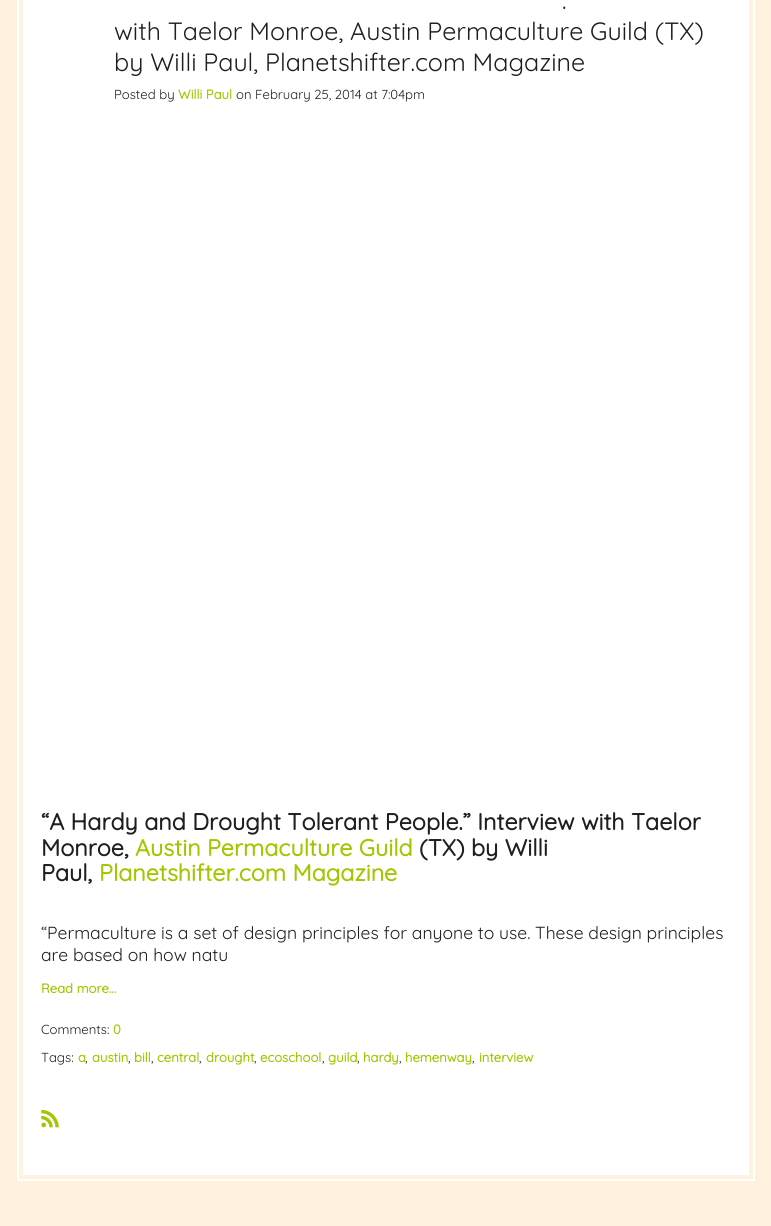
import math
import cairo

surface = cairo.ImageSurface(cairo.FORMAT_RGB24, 771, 1226)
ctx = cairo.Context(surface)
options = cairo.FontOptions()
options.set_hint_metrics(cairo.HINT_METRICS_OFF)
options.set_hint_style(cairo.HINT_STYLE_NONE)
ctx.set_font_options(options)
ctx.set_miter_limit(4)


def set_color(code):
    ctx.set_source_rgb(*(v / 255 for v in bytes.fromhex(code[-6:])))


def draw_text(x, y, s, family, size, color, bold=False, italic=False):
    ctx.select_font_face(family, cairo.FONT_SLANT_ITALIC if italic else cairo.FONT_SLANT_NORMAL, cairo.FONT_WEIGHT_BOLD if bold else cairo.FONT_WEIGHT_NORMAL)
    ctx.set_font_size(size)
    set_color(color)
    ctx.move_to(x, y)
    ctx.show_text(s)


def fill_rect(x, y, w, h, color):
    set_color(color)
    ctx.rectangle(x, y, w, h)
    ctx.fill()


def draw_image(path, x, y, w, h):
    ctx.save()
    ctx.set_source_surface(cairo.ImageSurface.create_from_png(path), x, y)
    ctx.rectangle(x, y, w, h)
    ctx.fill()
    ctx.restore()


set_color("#fff1de")
ctx.paint()
fill_rect(17, 0, 738, 1181, "#ffffff")
ctx.rectangle(21, -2, 730, 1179)
set_color("#fef3de")
ctx.set_line_width(4)
ctx.stroke()
draw_text(562, 9, ".", "Quicksand Light", 25, "#1f1f1f")
draw_text(114, 40, "with Taelor Monroe, Austin Permaculture Guild (TX)", "Quicksand Light", 25, "#1f1f1f")
draw_text(114, 71, "by Willi Paul, Planetshifter.com Magazine", "Quicksand Light", 25, "#1f1f1f")
draw_text(114, 99, "Posted by", "Quicksand Light", 13.1, "#1f1f1f")
draw_text(178, 99, "Willi Paul", "Quicksand", 13.1, "#a5c500", bold=True)
draw_text(236, 99, "on February 25, 2014 at 7:04pm", "Quicksand Light", 13.1, "#1f1f1f")
draw_text(41, 830, "“A Hardy and Drought Tolerant People.” Interview with Taelor", "Quicksand", 23.3, "#1f1f1f", bold=True)
draw_text(41, 856, "Monroe,", "Quicksand", 23.3, "#1f1f1f", bold=True)
draw_text(135, 856, "Austin Permaculture Guild", "Quicksand", 23.3, "#a5c500", bold=True)
draw_text(419, 856, "(TX) by Willi", "Quicksand", 23.3, "#1f1f1f", bold=True)
draw_text(41, 881, "Paul,", "Quicksand", 23.3, "#1f1f1f", bold=True)
draw_text(99, 881, "Planetshifter.com Magazine", "Quicksand", 23.3, "#a5c500", bold=True)
draw_text(41, 939, "“Permaculture is a set of design principles for anyone to use. These design principles", "Quicksand Light", 17.5, "#1f1f1f")
draw_text(41, 961, "are based on how natu", "Quicksand Light", 17.5, "#1f1f1f")
draw_text(41, 993, "Read more…", "Quicksand", 13.1, "#a5c500", bold=True)
draw_text(41, 1034, "Comments:", "Quicksand Light", 13.1, "#1f1f1f")
draw_text(113, 1034, "0", "Quicksand", 13.1, "#a5c500", bold=True)
draw_text(41, 1062, "Tags:", "Quicksand Light", 13.1, "#1f1f1f")
draw_text(78, 1062, "a", "Quicksand", 13.1, "#a5c500", bold=True)
draw_text(85, 1062, ",", "Quicksand Light", 13.1, "#1f1f1f")
draw_text(92, 1062, "austin", "Quicksand", 13.1, "#a5c500", bold=True)
draw_text(128, 1062, ",", "Quicksand Light", 13.1, "#1f1f1f")
draw_text(134, 1062, "bill", "Quicksand", 13.1, "#a5c500", bold=True)
draw_text(151, 1062, ",", "Quicksand Light", 13.1, "#1f1f1f")
draw_text(157, 1062, "central", "Quicksand", 13.1, "#a5c500", bold=True)
draw_text(199, 1062, ",", "Quicksand Light", 13.1, "#1f1f1f")
draw_text(206, 1062, "drought", "Quicksand", 13.1, "#a5c500", bold=True)
draw_text(254, 1062, ",", "Quicksand Light", 13.1, "#1f1f1f")
draw_text(260, 1062, "ecoschool", "Quicksand", 13.1, "#a5c500", bold=True)
draw_text(322, 1062, ",", "Quicksand Light", 13.1, "#1f1f1f")
draw_text(328, 1062, "guild", "Quicksand", 13.1, "#a5c500", bold=True)
draw_text(357, 1062, ",", "Quicksand Light", 13.1, "#1f1f1f")
draw_text(363, 1062, "hardy", "Quicksand", 13.1, "#a5c500", bold=True)
draw_text(399, 1062, ",", "Quicksand Light", 13.1, "#1f1f1f")
draw_text(405, 1062, "hemenway", "Quicksand", 13.1, "#a5c500", bold=True)
draw_text(472, 1062, ",", "Quicksand Light", 13.1, "#1f1f1f")
draw_text(479, 1062, "interview", "Quicksand", 13.1, "#a5c500", bold=True)
draw_image("assets/img1.png", 41, 1110, 18, 18)
surface.write_to_png("output.png")
